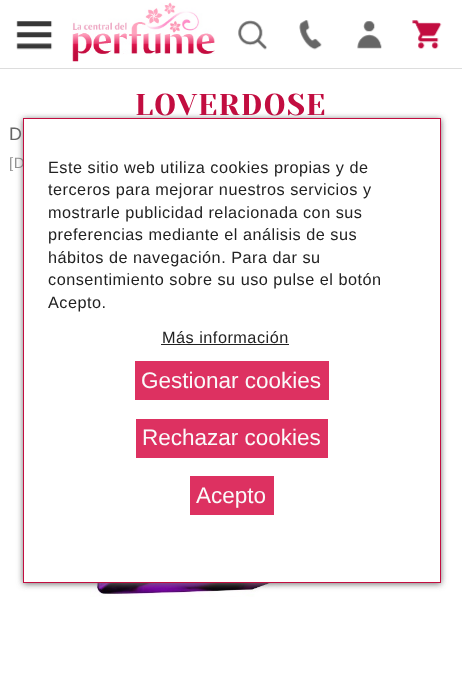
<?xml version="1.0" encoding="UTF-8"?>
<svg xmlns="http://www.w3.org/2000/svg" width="462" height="700">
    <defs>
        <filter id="blur1" x="-50%" y="-200%" width="200%" height="500%"><feGaussianBlur stdDeviation="3"/></filter>
    </defs>
    <rect width="100%" height="100%" fill="#FFFFFF"/>
    <rect x="0" y="68" width="462" height="1" fill="#DDDDDD"/>
    <image x="16" y="21" width="37" height="29" href="img_01.png"/>
    <image x="71" y="2" width="144" height="60" href="img_02.png"/>
    <image x="238" y="20" width="29" height="30" href="img_03.png"/>
    <image x="299" y="20" width="23" height="30" href="img_04.png"/>
    <image x="357" y="21" width="25" height="28" href="img_05.png"/>
    <image x="412" y="20" width="30" height="29" href="img_06.png"/>
    <text x="135" y="115" font-family="Yeseva One" font-size="30" letter-spacing="1.25" fill="#C20D40">LOVERDOSE</text>
    <text x="9" y="140" font-family="Liberation Sans" font-size="18" letter-spacing="0.5" fill="#666666">D</text>
    <text x="9" y="168" font-family="Liberation Sans" font-size="15" letter-spacing="0.5" fill="#939393">[D</text>
    <image x="90" y="583" width="306" height="14" href="img_07.png"/>
    <rect x="23" y="119" width="418" height="465" fill="#707070" filter="url(#blur1)"/>
    <rect x="23.5" y="118.5" width="417" height="464" fill="#FFFFFF" stroke="#C20D40"/>
    <text font-family="Liberation Sans" font-size="16.25" letter-spacing="0.5" fill="#222222">
        <tspan x="48" y="173">Este sitio web utiliza cookies propias y de</tspan>
        <tspan x="48" y="195">terceros para mejorar nuestros servicios y</tspan>
        <tspan x="48" y="218">mostrarle publicidad relacionada con sus</tspan>
        <tspan x="48" y="240">preferencias mediante el análisis de sus</tspan>
        <tspan x="48" y="263">hábitos de navegación. Para dar su</tspan>
        <tspan x="48" y="285">consentimiento sobre su uso pulse el botón</tspan>
        <tspan x="48" y="308">Acepto.</tspan>
    </text>
    <text x="162" y="343" font-family="Liberation Sans" font-size="16.25" letter-spacing="0.5" fill="#222222">Más información</text>
    <rect x="161" y="344" width="128" height="1" fill="#222222"/>
    <rect x="135" y="361" width="194" height="39" fill="#DD3161"/>
    <text x="141" y="388" font-family="Liberation Sans" font-size="22.5" fill="#FAFAFA">Gestionar cookies</text>
    <rect x="136" y="419" width="192" height="39" fill="#DD3161"/>
    <text x="142" y="445" font-family="Liberation Sans" font-size="22.5" fill="#FAFAFA">Rechazar cookies</text>
    <rect x="190" y="476" width="84" height="39" fill="#DD3161"/>
    <text x="196" y="503" font-family="Liberation Sans" font-size="22.5" fill="#FAFAFA">Acepto</text>
</svg>
